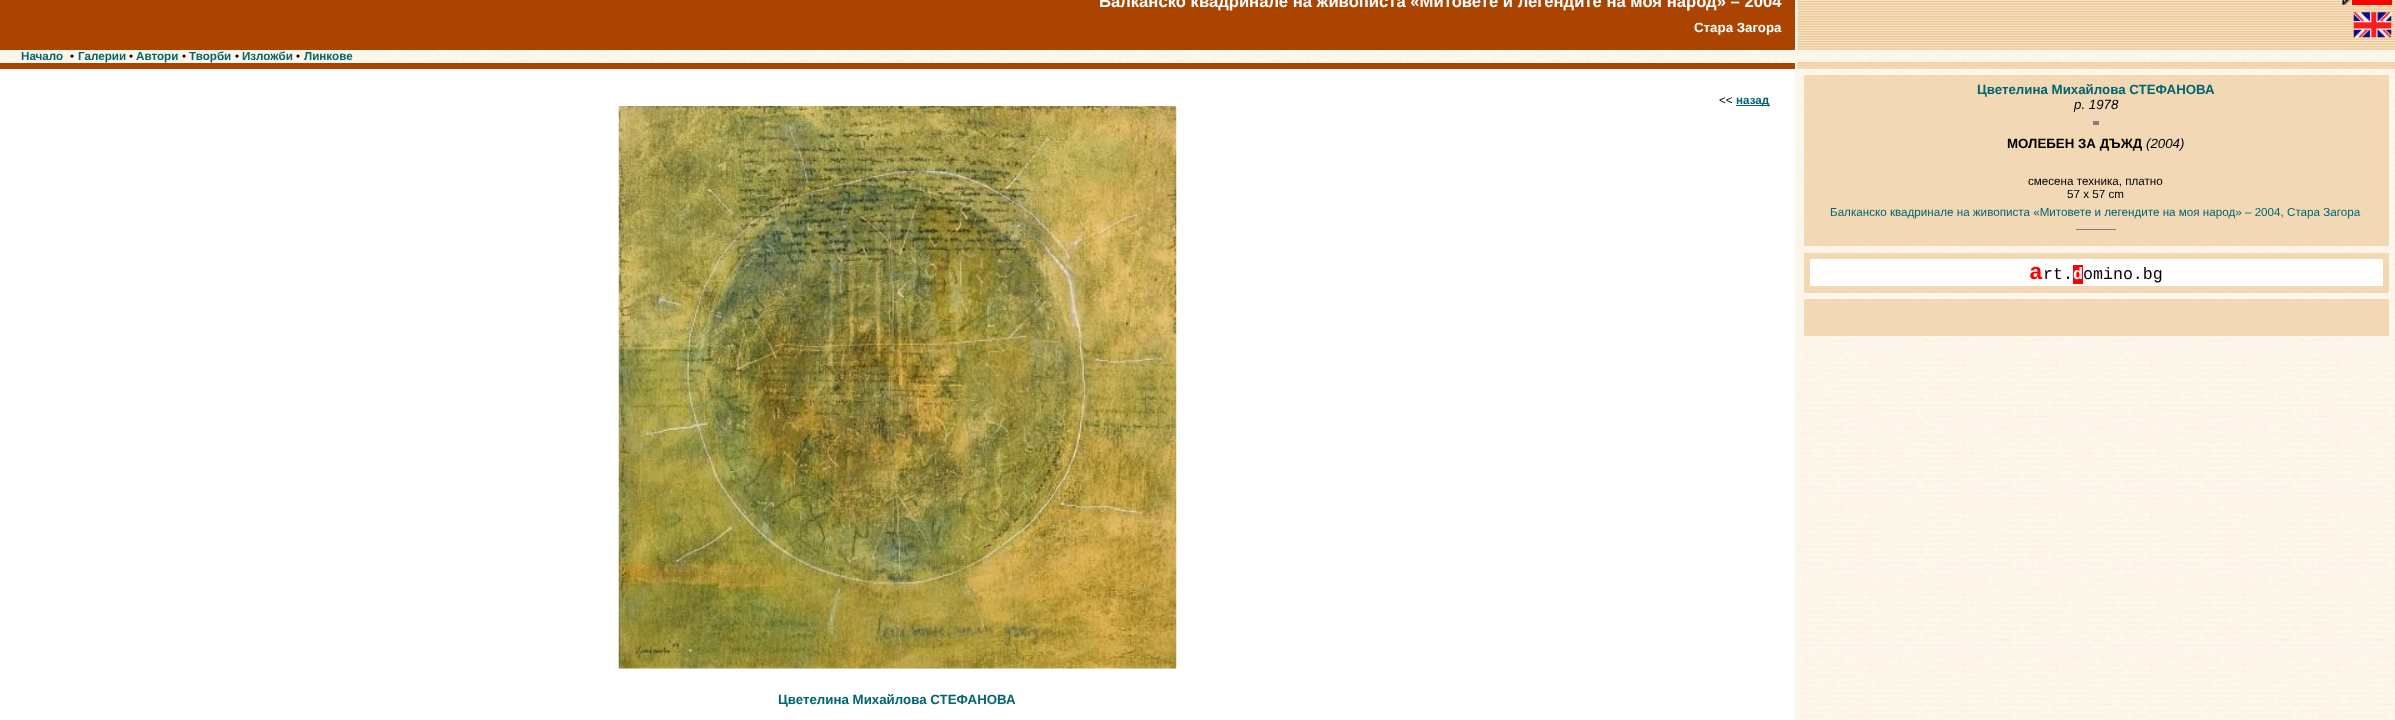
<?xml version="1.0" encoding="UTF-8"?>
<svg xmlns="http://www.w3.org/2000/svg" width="2395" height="720">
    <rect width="100%" height="100%" fill="#FFFFFF"/>
    <image x="0" y="0" width="2395" height="720" href="img_01.png"/>
    <rect x="0" y="0" width="1795" height="50" fill="#AA4400"/>
    <text x="1099" y="7" font-family="Liberation Sans" font-size="16.65" font-weight="700" fill="#FFFFFF">Балканско квадринале на живописта «Митовете и легендите на моя народ» – 2004</text>
    <text x="1694" y="32" font-family="Liberation Sans" font-size="13.3" font-weight="700" fill="#FFFFFF">Стара Загора</text>
    <rect x="1798" y="0" width="597" height="50" fill="#F7E6CE"/>
    <image x="1797" y="0" width="598" height="50" href="img_02.png"/>
    <image x="2342" y="0" width="9" height="5" href="img_03.png"/>
    <rect x="2352" y="0" width="40" height="5" fill="#FE0202"/>
    <image x="2353" y="12" width="39" height="26" href="img_04.png"/>
    <text x="21" y="60" font-family="Liberation Sans" font-size="11.65" font-weight="700" fill="#006571">Начало</text>
    <text x="70" y="60" font-family="Liberation Sans" font-size="11.65" fill="#000000">•</text>
    <text x="78" y="60" font-family="Liberation Sans" font-size="11.65" font-weight="700" fill="#006571">Галерии</text>
    <text x="129" y="60" font-family="Liberation Sans" font-size="11.65" fill="#000000">•</text>
    <text x="136" y="60" font-family="Liberation Sans" font-size="11.65" font-weight="700" fill="#006571">Автори</text>
    <text x="182" y="60" font-family="Liberation Sans" font-size="11.65" fill="#000000">•</text>
    <text x="189" y="60" font-family="Liberation Sans" font-size="11.65" font-weight="700" fill="#006571">Творби</text>
    <text x="235" y="60" font-family="Liberation Sans" font-size="11.65" fill="#000000">•</text>
    <text x="242" y="60" font-family="Liberation Sans" font-size="11.65" font-weight="700" fill="#006571">Изложби</text>
    <text x="296" y="60" font-family="Liberation Sans" font-size="11.65" fill="#000000">•</text>
    <text x="304" y="60" font-family="Liberation Sans" font-size="11.65" font-weight="700" fill="#006571">Линкове</text>
    <rect x="0" y="63" width="1795" height="6" fill="#AA4400"/>
    <rect x="1798" y="63" width="597" height="6" fill="#F7E6CE"/>
    <image x="1797" y="62" width="598" height="7" href="img_05.png"/>
    <rect x="0" y="69" width="1795" height="651" fill="#FFFFFF"/>
    <text x="1719" y="104" font-family="Liberation Sans" font-size="11.65" fill="#000000">&lt;&lt;</text>
    <rect x="1736" y="105" width="34" height="1" fill="#006571"/>
    <text x="1736" y="104" font-family="Liberation Sans" font-size="11.65" font-weight="700" fill="#006571">назад</text>
    <image x="618" y="106" width="559" height="563" href="img_06.png"/>
    <text x="778" y="704" font-family="Liberation Sans" font-size="13.3" font-weight="700" fill="#006571">Цветелина Михайлова СТЕФАНОВА</text>
    <rect x="1804" y="75" width="585" height="171" fill="#F2D8B5"/>
    <text x="1977" y="94" font-family="Liberation Sans" font-size="13.3" font-weight="700" fill="#006571">Цветелина Михайлова СТЕФАНОВА</text>
    <text x="2074" y="109" font-family="Liberation Sans" font-size="13.3" font-style="italic" fill="#000000">р. 1978</text>
    <rect x="2093" y="121" width="6" height="4" fill="#808080"/>
    <text x="2007" y="148" font-family="Liberation Sans" font-size="13.3" font-weight="700" fill="#000000">МОЛЕБЕН ЗА ДЪЖД</text>
    <text x="2146" y="148" font-family="Liberation Sans" font-size="13.3" font-style="italic" fill="#000000">(2004)</text>
    <text x="2028" y="185" font-family="Liberation Sans" font-size="11.65" fill="#000000">смесена техника, платно</text>
    <text x="2067" y="198" font-family="Liberation Sans" font-size="11.65" fill="#000000">57 x 57 cm</text>
    <text x="1830" y="216" font-family="Liberation Sans" font-size="11.65" fill="#006571">Балканско квадринале на живописта «Митовете и легендите на моя народ» – 2004, Стара Загора</text>
    <rect x="2076" y="229" width="40" height="1" fill="#808080"/>
    <rect x="1804" y="253" width="585" height="40" fill="#F2D8B5"/>
    <rect x="1810" y="259" width="573" height="27" fill="#FFFFFF"/>
    <text x="2029" y="279" font-family="Liberation Mono" font-size="23" font-weight="700" fill="#FF0000">a</text>
    <text x="2043" y="279" font-family="Liberation Mono" font-size="16.65" fill="#000000">rt. omino.bg</text>
    <rect x="2073" y="265" width="10" height="19" fill="#FF0000"/>
    <text x="2073" y="279" font-family="Liberation Mono" font-size="16.65" font-weight="700" fill="#FFFFFF">d</text>
    <rect x="1804" y="299" width="585" height="37" fill="#F2D8B5"/>
</svg>
